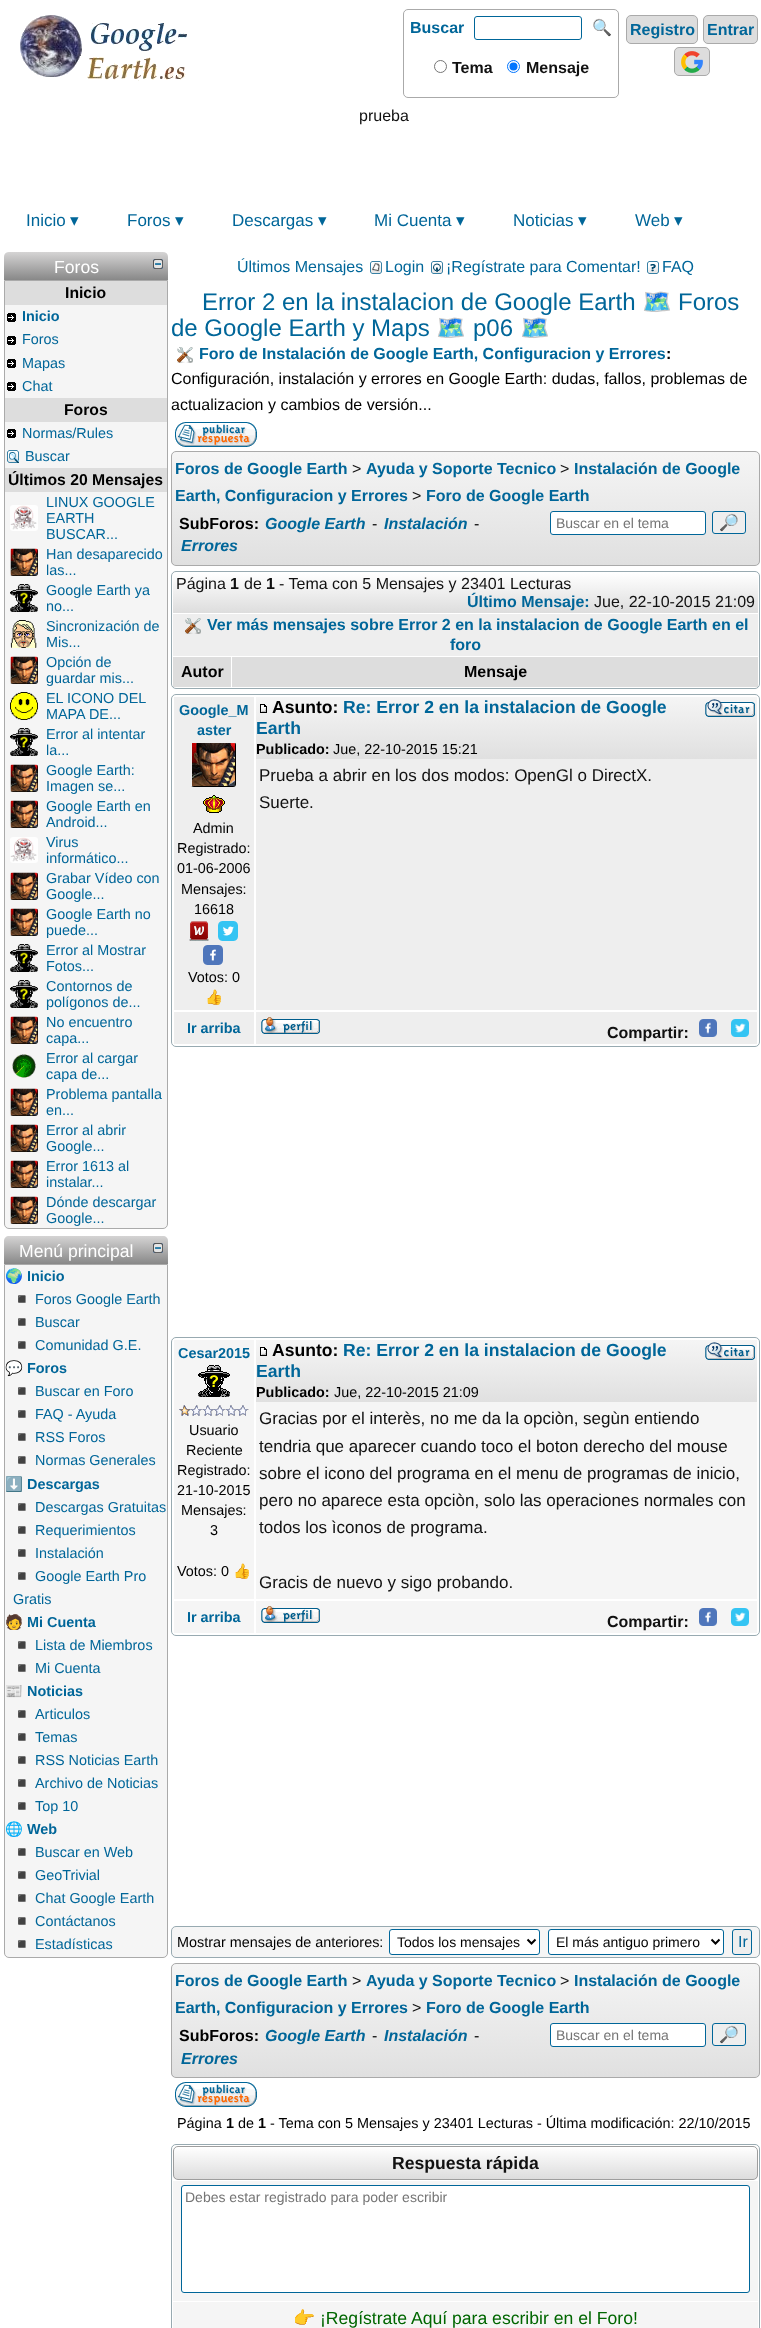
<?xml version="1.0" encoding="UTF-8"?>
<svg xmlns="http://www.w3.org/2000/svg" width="761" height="2328">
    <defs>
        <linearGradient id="g1" gradientUnits="userSpaceOnUse" x1="86" y1="252" x2="86" y2="280"><stop offset="0" stop-color="#D5D4D4"/><stop offset="1" stop-color="#888888"/></linearGradient>
        <linearGradient id="g2" gradientUnits="userSpaceOnUse" x1="86" y1="1236" x2="86" y2="1264"><stop offset="0" stop-color="#D5D4D4"/><stop offset="1" stop-color="#888888"/></linearGradient>
        <clipPath id="clip1"><rect x="171" y="451" width="589" height="115" rx="5"/></clipPath>
        <linearGradient id="g3" gradientUnits="userSpaceOnUse" x1="466" y1="452" x2="466" y2="565"><stop offset="0" stop-color="#F5F5F5"/><stop offset="1" stop-color="#E0E0E0"/></linearGradient>
        <linearGradient id="g4" gradientUnits="userSpaceOnUse" x1="466" y1="573" x2="466" y2="613"><stop offset="0" stop-color="#FFFFFF"/><stop offset="1" stop-color="#DDDDDD"/></linearGradient>
        <linearGradient id="g5" gradientUnits="userSpaceOnUse" x1="507" y1="697" x2="507" y2="759"><stop offset="0" stop-color="#F5F5F5"/><stop offset="1" stop-color="#E0E0E0"/></linearGradient>
        <linearGradient id="g6" gradientUnits="userSpaceOnUse" x1="507" y1="1340" x2="507" y2="1402"><stop offset="0" stop-color="#F5F5F5"/><stop offset="1" stop-color="#E0E0E0"/></linearGradient>
        <clipPath id="clip2"><rect x="171" y="1963" width="589" height="115" rx="5"/></clipPath>
        <linearGradient id="g7" gradientUnits="userSpaceOnUse" x1="466" y1="1964" x2="466" y2="2077"><stop offset="0" stop-color="#F5F5F5"/><stop offset="1" stop-color="#E0E0E0"/></linearGradient>
        <clipPath id="clip3"><rect x="173" y="2146" width="585" height="34" rx="5"/></clipPath>
        <linearGradient id="g8" gradientUnits="userSpaceOnUse" x1="466" y1="2147" x2="466" y2="2179"><stop offset="0" stop-color="#FFFFFF"/><stop offset="1" stop-color="#DDDDDD"/></linearGradient>
    </defs>
    <rect width="100%" height="100%" fill="#FFFFFF"/>
    <image x="20" y="15" width="167" height="66" href="img_01.png"/>
    <rect x="403.5" y="9.5" width="215" height="88" rx="4.5" fill="none" stroke="#AAAAAA"/>
    <text x="410" y="33" font-family="Liberation Sans" font-size="16" font-weight="700" fill="#006699">Buscar</text>
    <rect x="474.5" y="16.5" width="107" height="23" rx="2.5" fill="none" stroke="#006699"/>
    <text x="592" y="33" font-family="Noto Color Emoji" font-size="16" fill="#006699">🔍</text>
    <circle cx="440.5" cy="66.5" r="6" fill="none" stroke="#767676"/>
    <text x="452" y="73" font-family="Liberation Sans" font-size="16" font-weight="700" fill="#111111">Tema</text>
    <circle cx="513.5" cy="66.5" r="6" fill="none" stroke="#0075FF"/>
    <circle cx="513.5" cy="66.5" r="4" fill="#0075FF"/>
    <text x="526" y="73" font-family="Liberation Sans" font-size="16" font-weight="700" fill="#111111">Mensaje</text>
    <rect x="626.5" y="15.5" width="71" height="28" rx="4.5" fill="#DDDDDD" stroke="#AAAAAA"/>
    <text x="630" y="35" font-family="Liberation Sans" font-size="16" font-weight="700" fill="#006699">Registro</text>
    <rect x="703.5" y="15.5" width="54" height="28" rx="4.5" fill="#DDDDDD" stroke="#AAAAAA"/>
    <text x="707" y="35" font-family="Liberation Sans" font-size="16" font-weight="700" fill="#006699">Entrar</text>
    <rect x="674.5" y="47.5" width="35" height="28" rx="4.5" fill="#DDDDDD" stroke="#AAAAAA"/>
    <image x="681" y="51" width="22" height="22" href="img_02.png"/>
    <text x="359" y="121" font-family="Liberation Sans" font-size="16" fill="#111111">prueba</text>
    <text x="26" y="226" font-family="Liberation Sans" font-size="17" fill="#006699">Inicio</text>
    <text x="70" y="226" font-family="DejaVu Sans" font-size="17" fill="#006699">▾</text>
    <text x="127" y="226" font-family="Liberation Sans" font-size="17" fill="#006699">Foros</text>
    <text x="175" y="226" font-family="DejaVu Sans" font-size="17" fill="#006699">▾</text>
    <text x="232" y="226" font-family="Liberation Sans" font-size="17" fill="#006699">Descargas</text>
    <text x="318" y="226" font-family="DejaVu Sans" font-size="17" fill="#006699">▾</text>
    <text x="374" y="226" font-family="Liberation Sans" font-size="17" fill="#006699">Mi Cuenta</text>
    <text x="456" y="226" font-family="DejaVu Sans" font-size="17" fill="#006699">▾</text>
    <text x="513" y="226" font-family="Liberation Sans" font-size="17" fill="#006699">Noticias</text>
    <text x="578" y="226" font-family="DejaVu Sans" font-size="17" fill="#006699">▾</text>
    <text x="635" y="226" font-family="Liberation Sans" font-size="17" fill="#006699">Web</text>
    <text x="674" y="226" font-family="DejaVu Sans" font-size="17" fill="#006699">▾</text>
    <path d="M 9 252 H 163 C 166 252 168 254 168 257 V 280 H 4 V 257 C 4 254 6 252 9 252 Z" fill="url(#g1)"/>
    <text x="54" y="273" font-family="Liberation Sans" font-size="17.6" fill="#FFFFFF">Foros</text>
    <image x="153" y="259" width="10" height="10" href="img_03.png"/>
    <path d="M 4.5 280.5 H 167.5 V 1224 C 167.5 1226.5 165.5 1228.5 163 1228.5 H 9 C 6.5 1228.5 4.5 1226.5 4.5 1224 Z" fill="#F5F5F5" stroke="#AAAAAA"/>
    <rect x="5" y="281" width="162" height="24" fill="#DDDDDD"/>
    <text x="65" y="298" font-family="Liberation Sans" font-size="15.75" font-weight="700" fill="#000000">Inicio</text>
    <image x="7" y="313" width="9" height="9" href="img_04.png"/>
    <text x="22" y="321" font-family="Liberation Sans" font-size="14.4" font-weight="700" fill="#006699">Inicio</text>
    <image x="7" y="336" width="9" height="9" href="img_04.png"/>
    <text x="22" y="344" font-family="Liberation Sans" font-size="14.4" fill="#006699">Foros</text>
    <image x="7" y="359" width="9" height="9" href="img_04.png"/>
    <text x="22" y="368" font-family="Liberation Sans" font-size="14.4" fill="#006699">Mapas</text>
    <image x="7" y="382" width="9" height="9" href="img_04.png"/>
    <text x="22" y="391" font-family="Liberation Sans" font-size="14.4" fill="#006699">Chat</text>
    <rect x="5" y="398" width="162" height="24" fill="#DDDDDD"/>
    <text x="64" y="415" font-family="Liberation Sans" font-size="15.75" font-weight="700" fill="#000000">Foros</text>
    <image x="7" y="429" width="9" height="9" href="img_04.png"/>
    <text x="22" y="438" font-family="Liberation Sans" font-size="14.4" fill="#006699">Normas/Rules</text>
    <image x="7" y="450" width="12" height="13" href="img_05.png"/>
    <text x="25" y="461" font-family="Liberation Sans" font-size="14.4" fill="#006699">Buscar</text>
    <rect x="5" y="468" width="162" height="24" fill="#DDDDDD"/>
    <text x="8" y="485" font-family="Liberation Sans" font-size="15.75" font-weight="700" fill="#000000">Últimos 20 Mensajes</text>
    <image x="10" y="505" width="28" height="26" href="img_06.png"/>
    <text font-family="Liberation Sans" font-size="14.4" fill="#006699">
        <tspan x="46" y="507">LINUX GOOGLE</tspan>
        <tspan x="46" y="523">EARTH</tspan>
        <tspan x="46" y="539">BUSCAR...</tspan>
    </text>
    <image x="10" y="548" width="28" height="28" href="img_07.png"/>
    <text font-family="Liberation Sans" font-size="14.4" fill="#006699">
        <tspan x="46" y="559">Han desaparecido</tspan>
        <tspan x="46" y="575">las...</tspan>
    </text>
    <image x="10" y="584" width="28" height="28" href="img_08.png"/>
    <text font-family="Liberation Sans" font-size="14.4" fill="#006699">
        <tspan x="46" y="595">Google Earth ya</tspan>
        <tspan x="46" y="611">no...</tspan>
    </text>
    <image x="10" y="620" width="27" height="28" href="img_09.png"/>
    <text font-family="Liberation Sans" font-size="14.4" fill="#006699">
        <tspan x="46" y="631">Sincronización de</tspan>
        <tspan x="46" y="647">Mis...</tspan>
    </text>
    <image x="10" y="656" width="28" height="28" href="img_07.png"/>
    <text font-family="Liberation Sans" font-size="14.4" fill="#006699">
        <tspan x="46" y="667">Opción de</tspan>
        <tspan x="46" y="683">guardar mis...</tspan>
    </text>
    <image x="10" y="692" width="28" height="28" href="img_10.png"/>
    <text font-family="Liberation Sans" font-size="14.4" fill="#006699">
        <tspan x="46" y="703">EL ICONO DEL</tspan>
        <tspan x="46" y="719">MAPA DE...</tspan>
    </text>
    <image x="10" y="728" width="28" height="28" href="img_08.png"/>
    <text font-family="Liberation Sans" font-size="14.4" fill="#006699">
        <tspan x="46" y="739">Error al intentar</tspan>
        <tspan x="46" y="755">la...</tspan>
    </text>
    <image x="10" y="764" width="28" height="28" href="img_11.png"/>
    <text font-family="Liberation Sans" font-size="14.4" fill="#006699">
        <tspan x="46" y="775">Google Earth:</tspan>
        <tspan x="46" y="791">Imagen se...</tspan>
    </text>
    <image x="10" y="800" width="28" height="28" href="img_07.png"/>
    <text font-family="Liberation Sans" font-size="14.4" fill="#006699">
        <tspan x="46" y="811">Google Earth en</tspan>
        <tspan x="46" y="827">Android...</tspan>
    </text>
    <image x="10" y="837" width="28" height="26" href="img_12.png"/>
    <text font-family="Liberation Sans" font-size="14.4" fill="#006699">
        <tspan x="46" y="847">Virus</tspan>
        <tspan x="46" y="863">informático...</tspan>
    </text>
    <image x="10" y="872" width="28" height="28" href="img_07.png"/>
    <text font-family="Liberation Sans" font-size="14.4" fill="#006699">
        <tspan x="46" y="883">Grabar Vídeo con</tspan>
        <tspan x="46" y="899">Google...</tspan>
    </text>
    <image x="10" y="908" width="28" height="28" href="img_07.png"/>
    <text font-family="Liberation Sans" font-size="14.4" fill="#006699">
        <tspan x="46" y="919">Google Earth no</tspan>
        <tspan x="46" y="935">puede...</tspan>
    </text>
    <image x="10" y="944" width="28" height="28" href="img_08.png"/>
    <text font-family="Liberation Sans" font-size="14.4" fill="#006699">
        <tspan x="46" y="955">Error al Mostrar</tspan>
        <tspan x="46" y="971">Fotos...</tspan>
    </text>
    <image x="10" y="980" width="28" height="28" href="img_08.png"/>
    <text font-family="Liberation Sans" font-size="14.4" fill="#006699">
        <tspan x="46" y="991">Contornos de</tspan>
        <tspan x="46" y="1007">polígonos de...</tspan>
    </text>
    <image x="10" y="1016" width="28" height="28" href="img_13.png"/>
    <text font-family="Liberation Sans" font-size="14.4" fill="#006699">
        <tspan x="46" y="1027">No encuentro</tspan>
        <tspan x="46" y="1043">capa...</tspan>
    </text>
    <image x="12" y="1054" width="24" height="24" href="img_14.png"/>
    <text font-family="Liberation Sans" font-size="14.4" fill="#006699">
        <tspan x="46" y="1063">Error al cargar</tspan>
        <tspan x="46" y="1079">capa de...</tspan>
    </text>
    <image x="10" y="1088" width="28" height="28" href="img_07.png"/>
    <text font-family="Liberation Sans" font-size="14.4" fill="#006699">
        <tspan x="46" y="1099">Problema pantalla</tspan>
        <tspan x="46" y="1115">en...</tspan>
    </text>
    <image x="10" y="1124" width="28" height="28" href="img_07.png"/>
    <text font-family="Liberation Sans" font-size="14.4" fill="#006699">
        <tspan x="46" y="1135">Error al abrir</tspan>
        <tspan x="46" y="1151">Google...</tspan>
    </text>
    <image x="10" y="1160" width="28" height="28" href="img_07.png"/>
    <text font-family="Liberation Sans" font-size="14.4" fill="#006699">
        <tspan x="46" y="1171">Error 1613 al</tspan>
        <tspan x="46" y="1187">instalar...</tspan>
    </text>
    <image x="10" y="1196" width="28" height="28" href="img_07.png"/>
    <text font-family="Liberation Sans" font-size="14.4" fill="#006699">
        <tspan x="46" y="1207">Dónde descargar</tspan>
        <tspan x="46" y="1223">Google...</tspan>
    </text>
    <path d="M 9 1236 H 163 C 166 1236 168 1238 168 1241 V 1264 H 4 V 1241 C 4 1238 6 1236 9 1236 Z" fill="url(#g2)"/>
    <text x="19" y="1257" font-family="Liberation Sans" font-size="17.6" fill="#FFFFFF">Menú principal</text>
    <image x="153" y="1243" width="10" height="10" href="img_03.png"/>
    <path d="M 4.5 1264.5 H 167.5 V 1953 C 167.5 1955.5 165.5 1957.5 163 1957.5 H 9 C 6.5 1957.5 4.5 1955.5 4.5 1953 Z" fill="#F5F5F5" stroke="#AAAAAA"/>
    <text x="5" y="1281" font-family="Noto Color Emoji" font-size="14.4" fill="#111111">🌍</text>
    <text x="27" y="1281" font-family="Liberation Sans" font-size="14.4" font-weight="700" fill="#006699">Inicio</text>
    <text x="13" y="1304" font-family="Noto Color Emoji" font-size="14.4" fill="#111111">◾</text>
    <text x="35" y="1304" font-family="Liberation Sans" font-size="14.4" fill="#006699">Foros Google Earth</text>
    <text x="13" y="1327" font-family="Noto Color Emoji" font-size="14.4" fill="#111111">◾</text>
    <text x="35" y="1327" font-family="Liberation Sans" font-size="14.4" fill="#006699">Buscar</text>
    <text x="13" y="1350" font-family="Noto Color Emoji" font-size="14.4" fill="#111111">◾</text>
    <text x="35" y="1350" font-family="Liberation Sans" font-size="14.4" fill="#006699">Comunidad G.E.</text>
    <text x="5" y="1373" font-family="Noto Color Emoji" font-size="14.4" fill="#111111">💬</text>
    <text x="27" y="1373" font-family="Liberation Sans" font-size="14.4" font-weight="700" fill="#006699">Foros</text>
    <text x="13" y="1396" font-family="Noto Color Emoji" font-size="14.4" fill="#111111">◾</text>
    <text x="35" y="1396" font-family="Liberation Sans" font-size="14.4" fill="#006699">Buscar en Foro</text>
    <text x="13" y="1419" font-family="Noto Color Emoji" font-size="14.4" fill="#111111">◾</text>
    <text x="35" y="1419" font-family="Liberation Sans" font-size="14.4" fill="#006699">FAQ - Ayuda</text>
    <text x="13" y="1442" font-family="Noto Color Emoji" font-size="14.4" fill="#111111">◾</text>
    <text x="35" y="1442" font-family="Liberation Sans" font-size="14.4" fill="#006699">RSS Foros</text>
    <text x="13" y="1465" font-family="Noto Color Emoji" font-size="14.4" fill="#111111">◾</text>
    <text x="35" y="1465" font-family="Liberation Sans" font-size="14.4" fill="#006699">Normas Generales</text>
    <text x="5" y="1489" font-family="Noto Color Emoji" font-size="14.4" fill="#111111">⬇️</text>
    <text x="27" y="1489" font-family="Liberation Sans" font-size="14.4" font-weight="700" fill="#006699">Descargas</text>
    <text x="13" y="1512" font-family="Noto Color Emoji" font-size="14.4" fill="#111111">◾</text>
    <text x="35" y="1512" font-family="Liberation Sans" font-size="14.4" fill="#006699">Descargas Gratuitas</text>
    <text x="13" y="1535" font-family="Noto Color Emoji" font-size="14.4" fill="#111111">◾</text>
    <text x="35" y="1535" font-family="Liberation Sans" font-size="14.4" fill="#006699">Requerimientos</text>
    <text x="13" y="1558" font-family="Noto Color Emoji" font-size="14.4" fill="#111111">◾</text>
    <text x="35" y="1558" font-family="Liberation Sans" font-size="14.4" fill="#006699">Instalación</text>
    <text x="13" y="1581" font-family="Noto Color Emoji" font-size="14.4" fill="#111111">◾</text>
    <text x="35" y="1581" font-family="Liberation Sans" font-size="14.4" fill="#006699">Google Earth Pro</text>
    <text x="13" y="1604" font-family="Liberation Sans" font-size="14.4" fill="#006699">Gratis</text>
    <text x="5" y="1627" font-family="Noto Color Emoji" font-size="14.4" fill="#111111">🧑</text>
    <text x="27" y="1627" font-family="Liberation Sans" font-size="14.4" font-weight="700" fill="#006699">Mi Cuenta</text>
    <text x="13" y="1650" font-family="Noto Color Emoji" font-size="14.4" fill="#111111">◾</text>
    <text x="35" y="1650" font-family="Liberation Sans" font-size="14.4" fill="#006699">Lista de Miembros</text>
    <text x="13" y="1673" font-family="Noto Color Emoji" font-size="14.4" fill="#111111">◾</text>
    <text x="35" y="1673" font-family="Liberation Sans" font-size="14.4" fill="#006699">Mi Cuenta</text>
    <text x="5" y="1696" font-family="Noto Color Emoji" font-size="14.4" fill="#111111">📰</text>
    <text x="27" y="1696" font-family="Liberation Sans" font-size="14.4" font-weight="700" fill="#006699">Noticias</text>
    <text x="13" y="1719" font-family="Noto Color Emoji" font-size="14.4" fill="#111111">◾</text>
    <text x="35" y="1719" font-family="Liberation Sans" font-size="14.4" fill="#006699">Articulos</text>
    <text x="13" y="1742" font-family="Noto Color Emoji" font-size="14.4" fill="#111111">◾</text>
    <text x="35" y="1742" font-family="Liberation Sans" font-size="14.4" fill="#006699">Temas</text>
    <text x="13" y="1765" font-family="Noto Color Emoji" font-size="14.4" fill="#111111">◾</text>
    <text x="35" y="1765" font-family="Liberation Sans" font-size="14.4" fill="#006699">RSS Noticias Earth</text>
    <text x="13" y="1788" font-family="Noto Color Emoji" font-size="14.4" fill="#111111">◾</text>
    <text x="35" y="1788" font-family="Liberation Sans" font-size="14.4" fill="#006699">Archivo de Noticias</text>
    <text x="13" y="1811" font-family="Noto Color Emoji" font-size="14.4" fill="#111111">◾</text>
    <text x="35" y="1811" font-family="Liberation Sans" font-size="14.4" fill="#006699">Top 10</text>
    <text x="5" y="1834" font-family="Noto Color Emoji" font-size="14.4" fill="#111111">🌐</text>
    <text x="27" y="1834" font-family="Liberation Sans" font-size="14.4" font-weight="700" fill="#006699">Web</text>
    <text x="13" y="1857" font-family="Noto Color Emoji" font-size="14.4" fill="#111111">◾</text>
    <text x="35" y="1857" font-family="Liberation Sans" font-size="14.4" fill="#006699">Buscar en Web</text>
    <text x="13" y="1880" font-family="Noto Color Emoji" font-size="14.4" fill="#111111">◾</text>
    <text x="35" y="1880" font-family="Liberation Sans" font-size="14.4" fill="#006699">GeoTrivial</text>
    <text x="13" y="1903" font-family="Noto Color Emoji" font-size="14.4" fill="#111111">◾</text>
    <text x="35" y="1903" font-family="Liberation Sans" font-size="14.4" fill="#006699">Chat Google Earth</text>
    <text x="13" y="1926" font-family="Noto Color Emoji" font-size="14.4" fill="#111111">◾</text>
    <text x="35" y="1926" font-family="Liberation Sans" font-size="14.4" fill="#006699">Contáctanos</text>
    <text x="13" y="1949" font-family="Noto Color Emoji" font-size="14.4" fill="#111111">◾</text>
    <text x="35" y="1949" font-family="Liberation Sans" font-size="14.4" fill="#006699">Estadísticas</text>
    <text x="237" y="272" font-family="Liberation Sans" font-size="16" fill="#006699">Últimos Mensajes</text>
    <image x="370" y="261" width="12" height="13" href="img_15.png"/>
    <text x="385" y="272" font-family="Liberation Sans" font-size="16" fill="#006699">Login</text>
    <image x="431" y="261" width="12" height="13" href="img_16.png"/>
    <text x="446" y="272" font-family="Liberation Sans" font-size="16" fill="#006699">¡Regístrate para Comentar!</text>
    <image x="647" y="261" width="12" height="13" href="img_17.png"/>
    <text x="662" y="272" font-family="Liberation Sans" font-size="16" fill="#006699">FAQ</text>
    <text x="202" y="310" font-family="Liberation Sans" font-size="24" fill="#006699">Error 2 en la instalacion de Google Earth</text>
    <text x="642" y="310" font-family="Noto Color Emoji" font-size="24" fill="#006699">🗺️</text>
    <text x="678" y="310" font-family="Liberation Sans" font-size="24" fill="#006699">Foros</text>
    <text x="171" y="336" font-family="Liberation Sans" font-size="24" fill="#006699">de Google Earth y Maps</text>
    <text x="436" y="336" font-family="Noto Color Emoji" font-size="24" fill="#006699">🗺️</text>
    <text x="473" y="336" font-family="Liberation Sans" font-size="24" fill="#006699">p06</text>
    <text x="520" y="336" font-family="Noto Color Emoji" font-size="24" fill="#000000">🗺️</text>
    <image x="177" y="347" width="16" height="16" href="img_18.png"/>
    <text x="199" y="359" font-family="Liberation Sans" font-size="16" font-weight="700" fill="#006699">Foro de Instalación de Google Earth, Configuracion y Errores</text>
    <text x="666" y="359" font-family="Liberation Sans" font-size="16" font-weight="700" fill="#000000">:</text>
    <text font-family="Liberation Sans" font-size="16" fill="#000000">
        <tspan x="171" y="384">Configuración, instalación y errores en Google Earth: dudas, fallos, problemas de</tspan>
        <tspan x="171" y="410">actualizacion y cambios de versión...</tspan>
    </text>
    <image x="175" y="422" width="82" height="25" href="img_19.png"/>
    <g clip-path="url(#clip1)">
        <rect x="171" y="452" width="589" height="113" fill="url(#g3)"/>
    </g>
    <rect x="171.5" y="451.5" width="588" height="114" rx="4.5" fill="none" stroke="#AAAAAA"/>
    <text x="175" y="474" font-family="Liberation Sans" font-size="16" font-weight="700" fill="#006699">Foros de Google Earth</text>
    <text x="352" y="474" font-family="Liberation Sans" font-size="16" fill="#111111">&gt;</text>
    <text x="366" y="474" font-family="Liberation Sans" font-size="16" font-weight="700" fill="#006699">Ayuda y Soporte Tecnico</text>
    <text x="560" y="474" font-family="Liberation Sans" font-size="16" fill="#111111">&gt;</text>
    <text x="574" y="474" font-family="Liberation Sans" font-size="16" font-weight="700" fill="#006699">Instalación de Google</text>
    <text x="175" y="501" font-family="Liberation Sans" font-size="16" font-weight="700" fill="#006699">Earth, Configuracion y Errores</text>
    <text x="412" y="501" font-family="Liberation Sans" font-size="16" fill="#111111">&gt;</text>
    <text x="426" y="501" font-family="Liberation Sans" font-size="16" font-weight="700" fill="#006699">Foro de Google Earth</text>
    <text x="179" y="529" font-family="Liberation Sans" font-size="16" font-weight="700" fill="#000000">SubForos:</text>
    <text x="265" y="529" font-family="Liberation Sans" font-size="16" font-weight="700" font-style="italic" fill="#006699">Google Earth</text>
    <text x="372" y="529" font-family="Liberation Sans" font-size="16" fill="#000000">-</text>
    <text x="384" y="529" font-family="Liberation Sans" font-size="16" font-weight="700" font-style="italic" fill="#006699">Instalación</text>
    <text x="474" y="529" font-family="Liberation Sans" font-size="16" fill="#000000">-</text>
    <text x="181" y="551" font-family="Liberation Sans" font-size="16" font-weight="700" font-style="italic" fill="#006699">Errores</text>
    <rect x="550.5" y="511.5" width="155" height="23" rx="2.5" fill="#FFFFFF" stroke="#006699"/>
    <text x="556" y="528" font-family="Liberation Sans" font-size="14" fill="#757575">Buscar en el tema</text>
    <rect x="712.5" y="511.5" width="33" height="22" rx="2.5" fill="#EEEEEE" stroke="#006699"/>
    <text x="719" y="528" font-family="Noto Color Emoji" font-size="16" fill="#006699">🔎</text>
    <rect x="171.5" y="571.5" width="588" height="117" rx="4.5" fill="none" stroke="#98AAB1"/>
    <rect x="173" y="573" width="585" height="40" fill="url(#g4)"/>
    <text x="176" y="589" font-family="Liberation Sans" font-size="16" fill="#111111">Página</text>
    <text x="230" y="589" font-family="Liberation Sans" font-size="16" font-weight="700" fill="#111111">1</text>
    <text x="244" y="589" font-family="Liberation Sans" font-size="16" fill="#111111">de</text>
    <text x="266" y="589" font-family="Liberation Sans" font-size="16" font-weight="700" fill="#111111">1</text>
    <text x="279" y="589" font-family="Liberation Sans" font-size="16" fill="#111111">- Tema con 5 Mensajes y 23401 Lecturas</text>
    <text x="467" y="607" font-family="Liberation Sans" font-size="16" font-weight="700" fill="#006699">Último Mensaje:</text>
    <text x="594" y="607" font-family="Liberation Sans" font-size="16" fill="#111111">Jue, 22-10-2015 21:09</text>
    <rect x="173" y="614" width="585" height="42" fill="#EEEEEE"/>
    <image x="185" y="618" width="16" height="16" href="img_20.png"/>
    <text x="207" y="630" font-family="Liberation Sans" font-size="16" font-weight="700" fill="#006699">Ver más mensajes sobre Error 2 en la instalacion de Google Earth en el</text>
    <text x="450" y="650" font-family="Liberation Sans" font-size="16" font-weight="700" fill="#006699">foro</text>
    <rect x="173" y="657" width="58" height="30" fill="#DDDDDD"/>
    <text x="181" y="677" font-family="Liberation Sans" font-size="16" font-weight="700" fill="#000000">Autor</text>
    <rect x="232" y="657" width="526" height="30" fill="#DDDDDD"/>
    <text x="464" y="677" font-family="Liberation Sans" font-size="16" font-weight="700" fill="#000000">Mensaje</text>
    <rect x="171.5" y="694.5" width="588" height="352" rx="4.5" fill="none" stroke="#98AAB1"/>
    <rect x="174" y="697" width="80" height="313" fill="#EEEEEE"/>
    <text x="179" y="715" font-family="Liberation Sans" font-size="14.4" font-weight="700" fill="#006699">Google_M</text>
    <text x="197" y="735" font-family="Liberation Sans" font-size="14.4" font-weight="700" fill="#006699">aster</text>
    <image x="191" y="743" width="45" height="44" href="img_21.png"/>
    <image x="203" y="795" width="22" height="18" href="img_22.png"/>
    <text x="193" y="833" font-family="Liberation Sans" font-size="14.4" fill="#000000">Admin</text>
    <text font-family="Liberation Sans" font-size="14.4" fill="#000000">
        <tspan x="177" y="853">Registrado:</tspan>
        <tspan x="177" y="873">01-06-2006</tspan>
    </text>
    <text x="181" y="894" font-family="Liberation Sans" font-size="14.4" fill="#000000">Mensajes:</text>
    <text x="194" y="914" font-family="Liberation Sans" font-size="14.4" fill="#000000">16618</text>
    <image x="189" y="921" width="20" height="20" href="img_23.png"/>
    <image x="218" y="921" width="20" height="20" href="img_24.png"/>
    <image x="203" y="945" width="20" height="20" href="img_25.png"/>
    <text x="188" y="982" font-family="Liberation Sans" font-size="14.4" fill="#000000">Votos: 0</text>
    <text x="205" y="1002" font-family="Noto Color Emoji" font-size="14.4" fill="#000000">👍</text>
    <rect x="256" y="759" width="501" height="251" fill="#EEEEEE"/>
    <rect x="256" y="697" width="501" height="62" fill="url(#g5)"/>
    <image x="260" y="704" width="7" height="9" href="img_26.png"/>
    <text x="272" y="713" font-family="Liberation Sans" font-size="17.6" font-weight="700" fill="#000000">Asunto:</text>
    <text x="343" y="713" font-family="Liberation Sans" font-size="17.6" font-weight="700" fill="#006699">Re: Error 2 en la instalacion de Google</text>
    <text x="256" y="734" font-family="Liberation Sans" font-size="17.6" font-weight="700" fill="#006699">Earth</text>
    <text x="256" y="754" font-family="Liberation Sans" font-size="14.4" font-weight="700" fill="#000000">Publicado:</text>
    <text x="333" y="754" font-family="Liberation Sans" font-size="14.4" fill="#000000">Jue, 22-10-2015 15:21</text>
    <image x="705" y="699" width="50" height="18" href="img_27.png"/>
    <text font-family="Liberation Sans" font-size="17" fill="#111111">
        <tspan x="259" y="781">Prueba a abrir en los dos modos: OpenGl o DirectX.</tspan>
        <tspan x="259" y="808">Suerte.</tspan>
    </text>
    <rect x="174" y="1012" width="80" height="32" fill="#EEEEEE"/>
    <text x="187" y="1033" font-family="Liberation Sans" font-size="14.4" font-weight="700" fill="#006699">Ir arriba</text>
    <rect x="256" y="1012" width="501" height="32" fill="#EEEEEE"/>
    <image x="261" y="1017" width="59" height="17" href="img_28.png"/>
    <text x="607" y="1038" font-family="Liberation Sans" font-size="16" font-weight="700" fill="#111111">Compartir:</text>
    <image x="699" y="1019" width="18" height="18" href="img_29.png"/>
    <image x="731" y="1019" width="18" height="18" href="img_30.png"/>
    <rect x="171.5" y="1337.5" width="588" height="298" rx="4.5" fill="none" stroke="#98AAB1"/>
    <rect x="174" y="1340" width="80" height="259" fill="#F5F5F5"/>
    <text x="178" y="1358" font-family="Liberation Sans" font-size="14.4" font-weight="700" fill="#006699">Cesar2015</text>
    <image x="198" y="1365" width="32" height="32" href="img_31.png"/>
    <image x="179" y="1405" width="70" height="11" href="img_32.png"/>
    <text x="189" y="1435" font-family="Liberation Sans" font-size="14.4" fill="#000000">Usuario</text>
    <text x="186" y="1455" font-family="Liberation Sans" font-size="14.4" fill="#000000">Reciente</text>
    <text font-family="Liberation Sans" font-size="14.4" fill="#000000">
        <tspan x="177" y="1475">Registrado:</tspan>
        <tspan x="177" y="1495">21-10-2015</tspan>
    </text>
    <text x="181" y="1515" font-family="Liberation Sans" font-size="14.4" fill="#000000">Mensajes:</text>
    <text x="210" y="1535" font-family="Liberation Sans" font-size="14.4" fill="#000000">3</text>
    <text x="177" y="1576" font-family="Liberation Sans" font-size="14.4" fill="#000000">Votos: 0</text>
    <text x="233" y="1576" font-family="Noto Color Emoji" font-size="14.4" fill="#000000">👍</text>
    <rect x="256" y="1402" width="501" height="197" fill="#F5F5F5"/>
    <rect x="256" y="1340" width="501" height="62" fill="url(#g6)"/>
    <image x="260" y="1347" width="7" height="9" href="img_26.png"/>
    <text x="272" y="1356" font-family="Liberation Sans" font-size="17.6" font-weight="700" fill="#000000">Asunto:</text>
    <text x="343" y="1356" font-family="Liberation Sans" font-size="17.6" font-weight="700" fill="#006699">Re: Error 2 en la instalacion de Google</text>
    <text x="256" y="1377" font-family="Liberation Sans" font-size="17.6" font-weight="700" fill="#006699">Earth</text>
    <text x="256" y="1397" font-family="Liberation Sans" font-size="14.4" font-weight="700" fill="#000000">Publicado:</text>
    <text x="334" y="1397" font-family="Liberation Sans" font-size="14.4" fill="#000000">Jue, 22-10-2015 21:09</text>
    <image x="705" y="1342" width="50" height="18" href="img_27.png"/>
    <text font-family="Liberation Sans" font-size="17" fill="#111111">
        <tspan x="259" y="1424">Gracias por el interès, no me da la opciòn, segùn entiendo</tspan>
        <tspan x="259" y="1452">tendria que aparecer cuando toco el boton derecho del mouse</tspan>
        <tspan x="259" y="1479">sobre el icono del programa en el menu de programas de inicio,</tspan>
        <tspan x="259" y="1506">pero no aparece esta opciòn, solo las operaciones normales con</tspan>
        <tspan x="259" y="1533">todos los ìconos de programa.</tspan>
    </text>
    <text x="259" y="1588" font-family="Liberation Sans" font-size="17" fill="#111111">Gracis de nuevo y sigo probando.</text>
    <rect x="174" y="1601" width="80" height="32" fill="#F5F5F5"/>
    <text x="187" y="1622" font-family="Liberation Sans" font-size="14.4" font-weight="700" fill="#006699">Ir arriba</text>
    <rect x="256" y="1601" width="501" height="32" fill="#F5F5F5"/>
    <image x="261" y="1606" width="59" height="17" href="img_33.png"/>
    <text x="607" y="1627" font-family="Liberation Sans" font-size="16" font-weight="700" fill="#111111">Compartir:</text>
    <image x="699" y="1608" width="18" height="18" href="img_34.png"/>
    <image x="731" y="1608" width="18" height="18" href="img_35.png"/>
    <rect x="171.5" y="1926.5" width="588" height="31" rx="4.5" fill="#F5F5F5" stroke="#98AAB1"/>
    <text x="177" y="1947" font-family="Liberation Sans" font-size="14.4" fill="#000000">Mostrar mensajes de anteriores:</text>
    <rect x="389.5" y="1929.5" width="150" height="25" rx="2.5" fill="#FFFFFF" stroke="#006699"/>
    <path d="M 527.5 1939.5 L 531.5 1943.5 L 535.5 1939.5" fill="none" stroke="#000000" stroke-width="2"/>
    <text x="397" y="1947" font-family="Liberation Sans" font-size="14" fill="#000000">Todos los mensajes</text>
    <rect x="548.5" y="1929.5" width="175" height="25" rx="2.5" fill="#FFFFFF" stroke="#006699"/>
    <path d="M 711.5 1939.5 L 715.5 1943.5 L 719.5 1939.5" fill="none" stroke="#000000" stroke-width="2"/>
    <text x="556" y="1947" font-family="Liberation Sans" font-size="14" fill="#000000">El más antiguo primero</text>
    <rect x="732.5" y="1929.5" width="19" height="25" rx="2.5" fill="#EEEEEE" stroke="#006699"/>
    <text x="738" y="1947" font-family="Liberation Sans" font-size="16" fill="#006699">Ir</text>
    <g clip-path="url(#clip2)">
        <rect x="171" y="1964" width="589" height="113" fill="url(#g7)"/>
    </g>
    <rect x="171.5" y="1963.5" width="588" height="114" rx="4.5" fill="none" stroke="#AAAAAA"/>
    <text x="175" y="1986" font-family="Liberation Sans" font-size="16" font-weight="700" fill="#006699">Foros de Google Earth</text>
    <text x="352" y="1986" font-family="Liberation Sans" font-size="16" fill="#111111">&gt;</text>
    <text x="366" y="1986" font-family="Liberation Sans" font-size="16" font-weight="700" fill="#006699">Ayuda y Soporte Tecnico</text>
    <text x="560" y="1986" font-family="Liberation Sans" font-size="16" fill="#111111">&gt;</text>
    <text x="574" y="1986" font-family="Liberation Sans" font-size="16" font-weight="700" fill="#006699">Instalación de Google</text>
    <text x="175" y="2013" font-family="Liberation Sans" font-size="16" font-weight="700" fill="#006699">Earth, Configuracion y Errores</text>
    <text x="412" y="2013" font-family="Liberation Sans" font-size="16" fill="#111111">&gt;</text>
    <text x="426" y="2013" font-family="Liberation Sans" font-size="16" font-weight="700" fill="#006699">Foro de Google Earth</text>
    <text x="179" y="2041" font-family="Liberation Sans" font-size="16" font-weight="700" fill="#000000">SubForos:</text>
    <text x="265" y="2041" font-family="Liberation Sans" font-size="16" font-weight="700" font-style="italic" fill="#006699">Google Earth</text>
    <text x="372" y="2041" font-family="Liberation Sans" font-size="16" fill="#000000">-</text>
    <text x="384" y="2041" font-family="Liberation Sans" font-size="16" font-weight="700" font-style="italic" fill="#006699">Instalación</text>
    <text x="474" y="2041" font-family="Liberation Sans" font-size="16" fill="#000000">-</text>
    <text x="181" y="2064" font-family="Liberation Sans" font-size="16" font-weight="700" font-style="italic" fill="#006699">Errores</text>
    <rect x="550.5" y="2023.5" width="155" height="23" rx="2.5" fill="#FFFFFF" stroke="#006699"/>
    <text x="556" y="2040" font-family="Liberation Sans" font-size="14" fill="#757575">Buscar en el tema</text>
    <rect x="712.5" y="2023.5" width="33" height="22" rx="2.5" fill="#EEEEEE" stroke="#006699"/>
    <text x="719" y="2040" font-family="Noto Color Emoji" font-size="16" fill="#006699">🔎</text>
    <image x="175" y="2082" width="82" height="25" href="img_19.png"/>
    <text x="177" y="2128" font-family="Liberation Sans" font-size="14.4" fill="#000000">Página</text>
    <text x="226" y="2128" font-family="Liberation Sans" font-size="14.4" font-weight="700" fill="#000000">1</text>
    <text x="238" y="2128" font-family="Liberation Sans" font-size="14.4" fill="#000000">de</text>
    <text x="258" y="2128" font-family="Liberation Sans" font-size="14.4" font-weight="700" fill="#000000">1</text>
    <text x="270" y="2128" font-family="Liberation Sans" font-size="14.4" fill="#000000">- Tema con 5 Mensajes y 23401 Lecturas - Última modificación: 22/10/2015</text>
    <rect x="171.5" y="2144.5" width="588" height="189" rx="4.5" fill="none" stroke="#98AAB1"/>
    <g clip-path="url(#clip3)">
        <rect x="173" y="2147" width="585" height="32" fill="url(#g8)"/>
    </g>
    <rect x="173.5" y="2146.5" width="584" height="33" rx="4.5" fill="none" stroke="#9E9E9E"/>
    <text x="392" y="2169" font-family="Liberation Sans" font-size="17.6" font-weight="700" fill="#111111">Respuesta rápida</text>
    <rect x="173" y="2181" width="585" height="120" fill="#F5F5F5"/>
    <rect x="181.5" y="2185.5" width="568" height="107" rx="2.5" fill="#FFFFFF" stroke="#006699"/>
    <text x="185" y="2202" font-family="Liberation Sans" font-size="14" fill="#757575">Debes estar registrado para poder escribir</text>
    <rect x="173" y="2302" width="585" height="26" fill="#F5F5F5"/>
    <text x="293" y="2324" font-family="Noto Color Emoji" font-size="17.6" fill="#006600">👉</text>
    <text x="320" y="2324" font-family="Liberation Sans" font-size="17.6" fill="#006600">¡Regístrate Aquí para escribir en el Foro!</text>
</svg>
